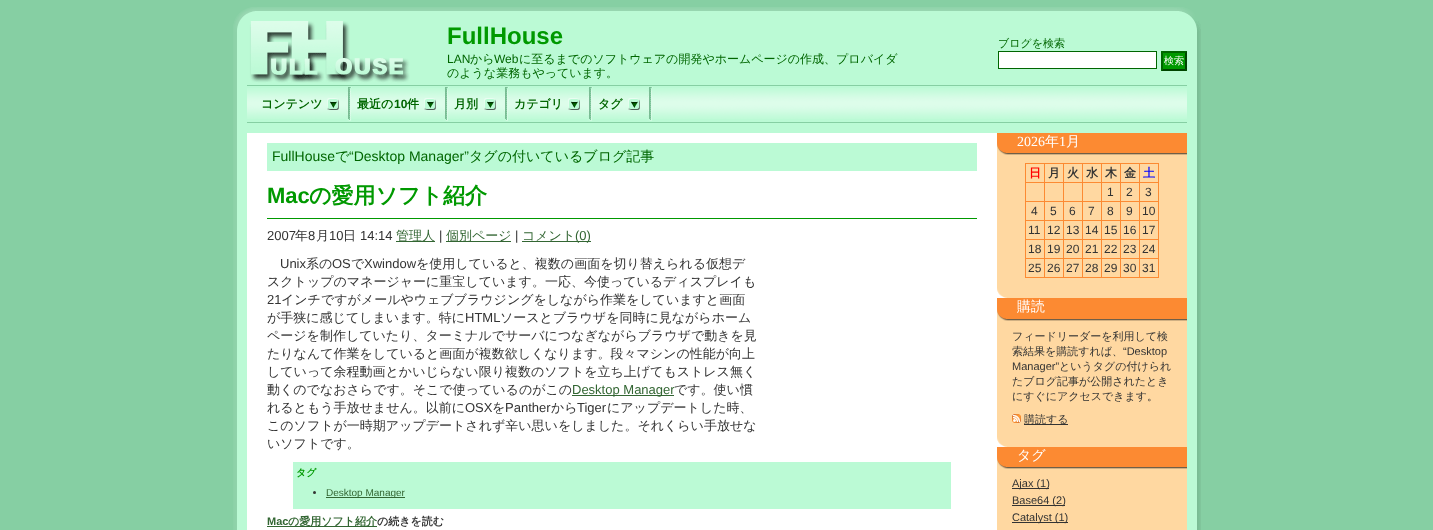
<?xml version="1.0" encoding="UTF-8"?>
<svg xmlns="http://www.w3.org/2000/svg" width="1433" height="530">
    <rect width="100%" height="100%" fill="#86CFA3"/>
    <image x="233" y="7" width="968" height="78" href="img_01.png"/>
    <text x="447" y="44" font-family="Liberation Sans" font-size="24" font-weight="700" fill="#009900">FullHouse</text>
    <text x="998" y="47" font-family="WenQuanYi Zen Hei" font-size="11" font-weight="500" fill="#006600">ブログを検索</text>
    <rect x="998.5" y="51.5" width="158" height="17" fill="#FFFFFF" stroke="#006600"/>
    <rect x="1161" y="51" width="26" height="20" fill="#009900"/>
    <path d="M 1161 51 H 1187 L 1185 53 H 1163 Z" fill="#006600"/>
    <path d="M 1187 51 V 71 L 1185 69 V 53 Z" fill="#004400"/>
    <path d="M 1187 71 H 1161 L 1163 69 H 1185 Z" fill="#004400"/>
    <path d="M 1161 71 V 51 L 1163 53 V 69 Z" fill="#006600"/>
    <text x="1164" y="64" font-family="WenQuanYi Zen Hei" font-size="10" font-weight="500" fill="#FFFFFF">検索</text>
    <text x="447" y="63" font-family="Liberation Sans" font-size="12" fill="#006600">LAN</text>
    <text x="470" y="63" font-family="WenQuanYi Zen Hei" font-size="12" font-weight="500" fill="#006600">から</text>
    <text x="494" y="63" font-family="Liberation Sans" font-size="12" fill="#006600">Web</text>
    <text x="519" y="63" font-family="WenQuanYi Zen Hei" font-size="12" font-weight="500" fill="#006600">に至るまでのソフトウェアの開発やホームページの作成、プロバイダ</text>
    <text x="447" y="77" font-family="WenQuanYi Zen Hei" font-size="12" font-weight="500" fill="#006600">のような業務もやっています。</text>
    <image x="233" y="85" width="968" height="38" href="img_02.png"/>
    <image x="247" y="88" width="940" height="31" href="img_03.png"/>
    <rect x="247" y="85" width="940" height="1" fill="#86CFA3"/>
    <rect x="247" y="122" width="940" height="1" fill="#86CFA3"/>
    <image x="346" y="87" width="6" height="34" href="img_04.png"/>
    <text x="261" y="108" font-family="WenQuanYi Zen Hei" font-size="12" font-weight="700" fill="#006600">コンテンツ</text>
    <image x="327" y="98" width="12" height="12" href="img_05.png"/>
    <image x="443" y="87" width="6" height="34" href="img_04.png"/>
    <text x="357" y="108" font-family="WenQuanYi Zen Hei" font-size="12" font-weight="700" fill="#006600">最近の</text>
    <text x="394" y="108" font-family="Liberation Sans" font-size="12" font-weight="700" fill="#006600">10</text>
    <text x="407" y="108" font-family="WenQuanYi Zen Hei" font-size="12" font-weight="700" fill="#006600">件</text>
    <image x="424" y="98" width="12" height="12" href="img_05.png"/>
    <image x="503" y="87" width="6" height="34" href="img_04.png"/>
    <text x="454" y="108" font-family="WenQuanYi Zen Hei" font-size="12" font-weight="700" fill="#006600">月別</text>
    <image x="484" y="98" width="12" height="12" href="img_05.png"/>
    <image x="587" y="87" width="6" height="34" href="img_04.png"/>
    <text x="514" y="108" font-family="WenQuanYi Zen Hei" font-size="12" font-weight="700" fill="#006600">カテゴリ</text>
    <image x="568" y="98" width="12" height="12" href="img_05.png"/>
    <image x="647" y="87" width="6" height="34" href="img_04.png"/>
    <text x="598" y="108" font-family="WenQuanYi Zen Hei" font-size="12" font-weight="700" fill="#006600">タグ</text>
    <image x="628" y="98" width="12" height="12" href="img_05.png"/>
    <image x="233" y="123" width="968" height="407" href="img_06.png"/>
    <rect x="247" y="133" width="750" height="397" fill="#FFFFFF"/>
    <rect x="267" y="143" width="710" height="28" fill="#BBFAD5"/>
    <text x="272" y="161" font-family="Liberation Sans" font-size="14" fill="#006600">FullHouse</text>
    <text x="335" y="161" font-family="WenQuanYi Zen Hei" font-size="14" font-weight="500" fill="#006600">で</text>
    <text x="349" y="161" font-family="Liberation Sans" font-size="14" fill="#006600">“Desktop Manager”</text>
    <text x="469" y="161" font-family="WenQuanYi Zen Hei" font-size="14" font-weight="500" fill="#006600">タグの付いているブログ記事</text>
    <rect x="267" y="218" width="710" height="1" fill="#009900"/>
    <text x="267" y="203" font-family="Liberation Sans" font-size="22" font-weight="700" fill="#009900">Mac</text>
    <text x="309" y="203" font-family="WenQuanYi Zen Hei" font-size="22" font-weight="700" fill="#009900">の愛用ソフト紹介</text>
    <text x="267" y="240" font-family="Liberation Sans" font-size="13" fill="#333333">2007</text>
    <text x="295" y="240" font-family="WenQuanYi Zen Hei" font-size="13" font-weight="500" fill="#333333">年</text>
    <text x="308" y="240" font-family="Liberation Sans" font-size="13" fill="#333333">8</text>
    <text x="316" y="240" font-family="WenQuanYi Zen Hei" font-size="13" font-weight="500" fill="#333333">月</text>
    <text x="329" y="240" font-family="Liberation Sans" font-size="13" fill="#333333">10</text>
    <text x="343" y="240" font-family="WenQuanYi Zen Hei" font-size="13" font-weight="500" fill="#333333">日</text>
    <text x="360" y="240" font-family="Liberation Sans" font-size="13" fill="#333333">14:14</text>
    <rect x="396" y="241" width="39" height="1" fill="#336633"/>
    <text x="396" y="240" font-family="WenQuanYi Zen Hei" font-size="13" font-weight="500" fill="#336633">管理人</text>
    <text x="439" y="240" font-family="Liberation Sans" font-size="13" fill="#333333">|</text>
    <rect x="446" y="241" width="65" height="1" fill="#336633"/>
    <text x="446" y="240" font-family="WenQuanYi Zen Hei" font-size="13" font-weight="500" fill="#336633">個別ページ</text>
    <text x="515" y="240" font-family="Liberation Sans" font-size="13" fill="#333333">|</text>
    <rect x="522" y="241" width="69" height="1" fill="#336633"/>
    <text x="522" y="240" font-family="WenQuanYi Zen Hei" font-size="13" font-weight="500" fill="#336633">コメント</text>
    <text x="575" y="240" font-family="Liberation Sans" font-size="13" fill="#336633">(0)</text>
    <text x="280" y="268" font-family="Liberation Sans" font-size="13" fill="#333333">Unix</text>
    <text x="306" y="268" font-family="WenQuanYi Zen Hei" font-size="13" font-weight="500" fill="#333333">系の</text>
    <text x="332" y="268" font-family="Liberation Sans" font-size="13" fill="#333333">OS</text>
    <text x="351" y="268" font-family="WenQuanYi Zen Hei" font-size="13" font-weight="500" fill="#333333">で</text>
    <text x="364" y="268" font-family="Liberation Sans" font-size="13" fill="#333333">Xwindow</text>
    <text x="416" y="268" font-family="WenQuanYi Zen Hei" font-size="13" font-weight="500" fill="#333333">を使用していると、複数の画面を切り替えられる仮想デ</text>
    <text x="267" y="286" font-family="WenQuanYi Zen Hei" font-size="13" font-weight="500" fill="#333333">スクトップのマネージャーに重宝しています。一応、今使っているディスプレイも</text>
    <text x="267" y="304" font-family="Liberation Sans" font-size="13" fill="#333333">21</text>
    <text x="281" y="304" font-family="WenQuanYi Zen Hei" font-size="13" font-weight="500" fill="#333333">インチですがメールやウェブブラウジングをしながら作業をしていますと画面</text>
    <text x="267" y="322" font-family="WenQuanYi Zen Hei" font-size="13" font-weight="500" fill="#333333">が手狭に感じてしまいます。特に</text>
    <text x="465" y="322" font-family="Liberation Sans" font-size="13" fill="#333333">HTML</text>
    <text x="500" y="322" font-family="WenQuanYi Zen Hei" font-size="13" font-weight="500" fill="#333333">ソースとブラウザを同時に見ながらホーム</text>
    <text font-family="WenQuanYi Zen Hei" font-size="13" font-weight="500" fill="#333333">
        <tspan x="267" y="340">ページを制作していたり、ターミナルでサーバにつなぎながらブラウザで動きを見</tspan>
        <tspan x="267" y="358">たりなんて作業をしていると画面が複数欲しくなります。段々マシンの性能が向上</tspan>
        <tspan x="267" y="376">していって余程動画とかいじらない限り複数のソフトを立ち上げてもストレス無く</tspan>
        <tspan x="267" y="394">動くのでなおさらです。そこで使っているのがこの</tspan>
    </text>
    <rect x="572" y="395" width="102" height="1" fill="#336633"/>
    <text x="572" y="394" font-family="Liberation Sans" font-size="13" fill="#336633">Desktop Manager</text>
    <text x="674" y="394" font-family="WenQuanYi Zen Hei" font-size="13" font-weight="500" fill="#333333">です。使い慣</text>
    <text x="267" y="412" font-family="WenQuanYi Zen Hei" font-size="13" font-weight="500" fill="#333333">れるともう手放せません。以前に</text>
    <text x="465" y="412" font-family="Liberation Sans" font-size="13" fill="#333333">OSX</text>
    <text x="492" y="412" font-family="WenQuanYi Zen Hei" font-size="13" font-weight="500" fill="#333333">を</text>
    <text x="505" y="412" font-family="Liberation Sans" font-size="13" fill="#333333">Panther</text>
    <text x="551" y="412" font-family="WenQuanYi Zen Hei" font-size="13" font-weight="500" fill="#333333">から</text>
    <text x="577" y="412" font-family="Liberation Sans" font-size="13" fill="#333333">Tiger</text>
    <text x="607" y="412" font-family="WenQuanYi Zen Hei" font-size="13" font-weight="500" fill="#333333">にアップデートした時、</text>
    <text font-family="WenQuanYi Zen Hei" font-size="13" font-weight="500" fill="#333333">
        <tspan x="267" y="430">このソフトが一時期アップデートされず辛い思いをしました。それくらい手放せな</tspan>
        <tspan x="267" y="448">いソフトです。</tspan>
    </text>
    <rect x="293" y="462" width="658" height="47" fill="#BBFAD5"/>
    <text x="296" y="476" font-family="WenQuanYi Zen Hei" font-size="10" font-weight="700" fill="#009900">タグ</text>
    <circle cx="314.5" cy="492.5" r="1.5" fill="#333333"/>
    <rect x="326" y="497" width="79" height="1" fill="#336633"/>
    <text x="326" y="496" font-family="Liberation Sans" font-size="10" fill="#336633">Desktop Manager</text>
    <text x="267" y="525" font-family="Liberation Sans" font-size="11" font-weight="700" fill="#336633">Mac</text>
    <rect x="267" y="526" width="110" height="1" fill="#336633"/>
    <text x="288" y="525" font-family="WenQuanYi Zen Hei" font-size="11" font-weight="700" fill="#336633">の愛用ソフト紹介</text>
    <text x="377" y="525" font-family="WenQuanYi Zen Hei" font-size="11" font-weight="700" fill="#333333">の続きを読む</text>
    <rect x="997" y="155" width="190" height="143" fill="#FFD8A1"/>
    <image x="997" y="288" width="10" height="10" href="img_07.png"/>
    <rect x="997" y="133" width="190" height="10" fill="#FC8A32"/>
    <image x="997" y="143" width="190" height="12" href="img_08.png"/>
    <text x="1017" y="146" font-family="Liberation Serif" font-size="14" fill="#FFFFFF">2026</text>
    <text x="1045" y="146" font-family="WenQuanYi Zen Hei" font-size="14" font-weight="500" fill="#FFFFFF">年</text>
    <text x="1059" y="146" font-family="Liberation Serif" font-size="14" fill="#FFFFFF">1</text>
    <text x="1066" y="146" font-family="WenQuanYi Zen Hei" font-size="14" font-weight="500" fill="#FFFFFF">月</text>
    <rect x="1139" y="163" width="20" height="1" fill="#FC8A32"/>
    <rect x="1139" y="182" width="20" height="1" fill="#FC8A32"/>
    <rect x="1139" y="201" width="20" height="1" fill="#FC8A32"/>
    <rect x="1139" y="220" width="20" height="1" fill="#FC8A32"/>
    <rect x="1139" y="239" width="20" height="1" fill="#FC8A32"/>
    <rect x="1139" y="258" width="20" height="1" fill="#FC8A32"/>
    <rect x="1158" y="258" width="1" height="20" fill="#FC8A32"/>
    <rect x="1139" y="277" width="20" height="1" fill="#FC8A32"/>
    <rect x="1139" y="258" width="1" height="20" fill="#FC8A32"/>
    <rect x="1120" y="258" width="20" height="1" fill="#FC8A32"/>
    <rect x="1139" y="239" width="1" height="20" fill="#FC8A32"/>
    <rect x="1120" y="239" width="20" height="1" fill="#FC8A32"/>
    <rect x="1139" y="220" width="1" height="20" fill="#FC8A32"/>
    <rect x="1120" y="220" width="20" height="1" fill="#FC8A32"/>
    <rect x="1139" y="201" width="1" height="20" fill="#FC8A32"/>
    <rect x="1120" y="201" width="20" height="1" fill="#FC8A32"/>
    <rect x="1139" y="182" width="1" height="20" fill="#FC8A32"/>
    <rect x="1120" y="182" width="20" height="1" fill="#FC8A32"/>
    <rect x="1139" y="163" width="1" height="20" fill="#FC8A32"/>
    <rect x="1120" y="163" width="20" height="1" fill="#FC8A32"/>
    <rect x="1120" y="277" width="20" height="1" fill="#FC8A32"/>
    <rect x="1120" y="258" width="1" height="20" fill="#FC8A32"/>
    <rect x="1101" y="258" width="20" height="1" fill="#FC8A32"/>
    <rect x="1120" y="239" width="1" height="20" fill="#FC8A32"/>
    <rect x="1101" y="239" width="20" height="1" fill="#FC8A32"/>
    <rect x="1120" y="220" width="1" height="20" fill="#FC8A32"/>
    <rect x="1101" y="220" width="20" height="1" fill="#FC8A32"/>
    <rect x="1120" y="201" width="1" height="20" fill="#FC8A32"/>
    <rect x="1101" y="201" width="20" height="1" fill="#FC8A32"/>
    <rect x="1120" y="182" width="1" height="20" fill="#FC8A32"/>
    <rect x="1101" y="182" width="20" height="1" fill="#FC8A32"/>
    <rect x="1120" y="163" width="1" height="20" fill="#FC8A32"/>
    <rect x="1101" y="163" width="20" height="1" fill="#FC8A32"/>
    <rect x="1101" y="277" width="20" height="1" fill="#FC8A32"/>
    <rect x="1101" y="258" width="1" height="20" fill="#FC8A32"/>
    <rect x="1082" y="258" width="20" height="1" fill="#FC8A32"/>
    <rect x="1101" y="239" width="1" height="20" fill="#FC8A32"/>
    <rect x="1082" y="239" width="20" height="1" fill="#FC8A32"/>
    <rect x="1101" y="220" width="1" height="20" fill="#FC8A32"/>
    <rect x="1082" y="220" width="20" height="1" fill="#FC8A32"/>
    <rect x="1101" y="201" width="1" height="20" fill="#FC8A32"/>
    <rect x="1082" y="201" width="20" height="1" fill="#FC8A32"/>
    <rect x="1101" y="182" width="1" height="20" fill="#FC8A32"/>
    <rect x="1082" y="182" width="20" height="1" fill="#FC8A32"/>
    <rect x="1101" y="163" width="1" height="20" fill="#FC8A32"/>
    <rect x="1082" y="163" width="20" height="1" fill="#FC8A32"/>
    <rect x="1082" y="277" width="20" height="1" fill="#FC8A32"/>
    <rect x="1082" y="258" width="1" height="20" fill="#FC8A32"/>
    <rect x="1063" y="258" width="20" height="1" fill="#FC8A32"/>
    <rect x="1082" y="239" width="1" height="20" fill="#FC8A32"/>
    <rect x="1063" y="239" width="20" height="1" fill="#FC8A32"/>
    <rect x="1082" y="220" width="1" height="20" fill="#FC8A32"/>
    <rect x="1063" y="220" width="20" height="1" fill="#FC8A32"/>
    <rect x="1082" y="201" width="1" height="20" fill="#FC8A32"/>
    <rect x="1063" y="201" width="20" height="1" fill="#FC8A32"/>
    <rect x="1082" y="182" width="1" height="20" fill="#FC8A32"/>
    <rect x="1063" y="182" width="20" height="1" fill="#FC8A32"/>
    <rect x="1082" y="163" width="1" height="20" fill="#FC8A32"/>
    <rect x="1063" y="163" width="20" height="1" fill="#FC8A32"/>
    <rect x="1063" y="277" width="20" height="1" fill="#FC8A32"/>
    <rect x="1063" y="258" width="1" height="20" fill="#FC8A32"/>
    <rect x="1044" y="258" width="20" height="1" fill="#FC8A32"/>
    <rect x="1063" y="239" width="1" height="20" fill="#FC8A32"/>
    <rect x="1044" y="239" width="20" height="1" fill="#FC8A32"/>
    <rect x="1063" y="220" width="1" height="20" fill="#FC8A32"/>
    <rect x="1044" y="220" width="20" height="1" fill="#FC8A32"/>
    <rect x="1063" y="201" width="1" height="20" fill="#FC8A32"/>
    <rect x="1044" y="201" width="20" height="1" fill="#FC8A32"/>
    <rect x="1063" y="182" width="1" height="20" fill="#FC8A32"/>
    <rect x="1044" y="182" width="20" height="1" fill="#FC8A32"/>
    <rect x="1063" y="163" width="1" height="20" fill="#FC8A32"/>
    <rect x="1044" y="163" width="20" height="1" fill="#FC8A32"/>
    <rect x="1044" y="277" width="20" height="1" fill="#FC8A32"/>
    <rect x="1044" y="258" width="1" height="20" fill="#FC8A32"/>
    <rect x="1025" y="258" width="20" height="1" fill="#FC8A32"/>
    <rect x="1044" y="239" width="1" height="20" fill="#FC8A32"/>
    <rect x="1025" y="239" width="20" height="1" fill="#FC8A32"/>
    <rect x="1044" y="220" width="1" height="20" fill="#FC8A32"/>
    <rect x="1025" y="220" width="20" height="1" fill="#FC8A32"/>
    <rect x="1044" y="201" width="1" height="20" fill="#FC8A32"/>
    <rect x="1025" y="201" width="20" height="1" fill="#FC8A32"/>
    <rect x="1044" y="182" width="1" height="20" fill="#FC8A32"/>
    <rect x="1025" y="182" width="20" height="1" fill="#FC8A32"/>
    <rect x="1044" y="163" width="1" height="20" fill="#FC8A32"/>
    <rect x="1025" y="163" width="20" height="1" fill="#FC8A32"/>
    <rect x="1025" y="277" width="20" height="1" fill="#FC8A32"/>
    <rect x="1025" y="258" width="1" height="20" fill="#FC8A32"/>
    <rect x="1025" y="239" width="1" height="20" fill="#FC8A32"/>
    <rect x="1025" y="220" width="1" height="20" fill="#FC8A32"/>
    <rect x="1025" y="201" width="1" height="20" fill="#FC8A32"/>
    <rect x="1025" y="182" width="1" height="20" fill="#FC8A32"/>
    <rect x="1025" y="163" width="1" height="20" fill="#FC8A32"/>
    <text x="1029" y="177" font-family="WenQuanYi Zen Hei" font-size="12" font-weight="700" fill="#FF0000">日</text>
    <text x="1048" y="177" font-family="WenQuanYi Zen Hei" font-size="12" font-weight="700" fill="#333333">月</text>
    <text x="1067" y="177" font-family="WenQuanYi Zen Hei" font-size="12" font-weight="700" fill="#333333">火</text>
    <text x="1086" y="177" font-family="WenQuanYi Zen Hei" font-size="12" font-weight="700" fill="#333333">水</text>
    <text x="1105" y="177" font-family="WenQuanYi Zen Hei" font-size="12" font-weight="700" fill="#333333">木</text>
    <text x="1124" y="177" font-family="WenQuanYi Zen Hei" font-size="12" font-weight="700" fill="#333333">金</text>
    <rect x="1158" y="239" width="1" height="20" fill="#FC8A32"/>
    <rect x="1158" y="220" width="1" height="20" fill="#FC8A32"/>
    <rect x="1158" y="201" width="1" height="20" fill="#FC8A32"/>
    <rect x="1158" y="182" width="1" height="20" fill="#FC8A32"/>
    <rect x="1158" y="163" width="1" height="20" fill="#FC8A32"/>
    <text x="1143" y="177" font-family="WenQuanYi Zen Hei" font-size="12" font-weight="700" fill="#0000FF">土</text>
    <text x="1107" y="196" font-family="Liberation Sans" font-size="12" fill="#333333">1</text>
    <text x="1126" y="196" font-family="Liberation Sans" font-size="12" fill="#333333">2</text>
    <text x="1145" y="196" font-family="Liberation Sans" font-size="12" fill="#333333">3</text>
    <text x="1031" y="215" font-family="Liberation Sans" font-size="12" fill="#333333">4</text>
    <text x="1050" y="215" font-family="Liberation Sans" font-size="12" fill="#333333">5</text>
    <text x="1069" y="215" font-family="Liberation Sans" font-size="12" fill="#333333">6</text>
    <text x="1088" y="215" font-family="Liberation Sans" font-size="12" fill="#333333">7</text>
    <text x="1107" y="215" font-family="Liberation Sans" font-size="12" fill="#333333">8</text>
    <text x="1126" y="215" font-family="Liberation Sans" font-size="12" fill="#333333">9</text>
    <text x="1142" y="215" font-family="Liberation Sans" font-size="12" fill="#333333">10</text>
    <text x="1028" y="234" font-family="Liberation Sans" font-size="12" fill="#333333">11</text>
    <text x="1047" y="234" font-family="Liberation Sans" font-size="12" fill="#333333">12</text>
    <text x="1066" y="234" font-family="Liberation Sans" font-size="12" fill="#333333">13</text>
    <text x="1085" y="234" font-family="Liberation Sans" font-size="12" fill="#333333">14</text>
    <text x="1104" y="234" font-family="Liberation Sans" font-size="12" fill="#333333">15</text>
    <text x="1123" y="234" font-family="Liberation Sans" font-size="12" fill="#333333">16</text>
    <text x="1142" y="234" font-family="Liberation Sans" font-size="12" fill="#333333">17</text>
    <text x="1028" y="253" font-family="Liberation Sans" font-size="12" fill="#333333">18</text>
    <text x="1047" y="253" font-family="Liberation Sans" font-size="12" fill="#333333">19</text>
    <text x="1066" y="253" font-family="Liberation Sans" font-size="12" fill="#333333">20</text>
    <text x="1085" y="253" font-family="Liberation Sans" font-size="12" fill="#333333">21</text>
    <text x="1104" y="253" font-family="Liberation Sans" font-size="12" fill="#333333">22</text>
    <text x="1123" y="253" font-family="Liberation Sans" font-size="12" fill="#333333">23</text>
    <text x="1142" y="253" font-family="Liberation Sans" font-size="12" fill="#333333">24</text>
    <text x="1028" y="272" font-family="Liberation Sans" font-size="12" fill="#333333">25</text>
    <text x="1047" y="272" font-family="Liberation Sans" font-size="12" fill="#333333">26</text>
    <text x="1066" y="272" font-family="Liberation Sans" font-size="12" fill="#333333">27</text>
    <text x="1085" y="272" font-family="Liberation Sans" font-size="12" fill="#333333">28</text>
    <text x="1104" y="272" font-family="Liberation Sans" font-size="12" fill="#333333">29</text>
    <text x="1123" y="272" font-family="Liberation Sans" font-size="12" fill="#333333">30</text>
    <text x="1142" y="272" font-family="Liberation Sans" font-size="12" fill="#333333">31</text>
    <rect x="997" y="321" width="190" height="126" fill="#FFD8A1"/>
    <image x="997" y="437" width="10" height="10" href="img_07.png"/>
    <rect x="997" y="298" width="190" height="11" fill="#FC8A32"/>
    <image x="997" y="309" width="190" height="12" href="img_08.png"/>
    <text x="1017" y="311" font-family="WenQuanYi Zen Hei" font-size="14" font-weight="500" fill="#FFFFFF">購読</text>
    <text font-family="WenQuanYi Zen Hei" font-size="11" font-weight="500" fill="#333333">
        <tspan x="1012" y="340">フィードリーダーを利用して検</tspan>
        <tspan x="1012" y="355">索結果を購読すれば、</tspan>
    </text>
    <text x="1123" y="355" font-family="Liberation Sans" font-size="11" fill="#333333">“Desktop</text>
    <text x="1012" y="370" font-family="Liberation Sans" font-size="11" fill="#333333">Manager”</text>
    <text x="1059" y="370" font-family="WenQuanYi Zen Hei" font-size="11" font-weight="500" fill="#333333">というタグの付けられ</text>
    <text font-family="WenQuanYi Zen Hei" font-size="11" font-weight="500" fill="#333333">
        <tspan x="1012" y="385">たブログ記事が公開されたとき</tspan>
        <tspan x="1012" y="400">にすぐにアクセスできます。</tspan>
    </text>
    <image x="1012" y="414" width="9" height="9" href="img_09.png"/>
    <rect x="1024" y="424" width="44" height="1" fill="#333333"/>
    <text x="1024" y="423" font-family="WenQuanYi Zen Hei" font-size="11" font-weight="500" fill="#333333">購読する</text>
    <rect x="997" y="469" width="190" height="61" fill="#FFD8A1"/>
    <rect x="997" y="447" width="190" height="10" fill="#FC8A32"/>
    <image x="997" y="457" width="190" height="12" href="img_08.png"/>
    <text x="1017" y="460" font-family="WenQuanYi Zen Hei" font-size="14" font-weight="500" fill="#FFFFFF">タグ</text>
    <rect x="1012" y="488" width="37" height="1" fill="#333333"/>
    <text x="1012" y="487" font-family="Liberation Sans" font-size="11" fill="#333333">Ajax (1)</text>
    <rect x="1012" y="505" width="53" height="1" fill="#333333"/>
    <text x="1012" y="504" font-family="Liberation Sans" font-size="11" fill="#333333">Base64 (2)</text>
    <rect x="1012" y="522" width="56" height="1" fill="#333333"/>
    <text x="1012" y="521" font-family="Liberation Sans" font-size="11" fill="#333333">Catalyst (1)</text>
</svg>
